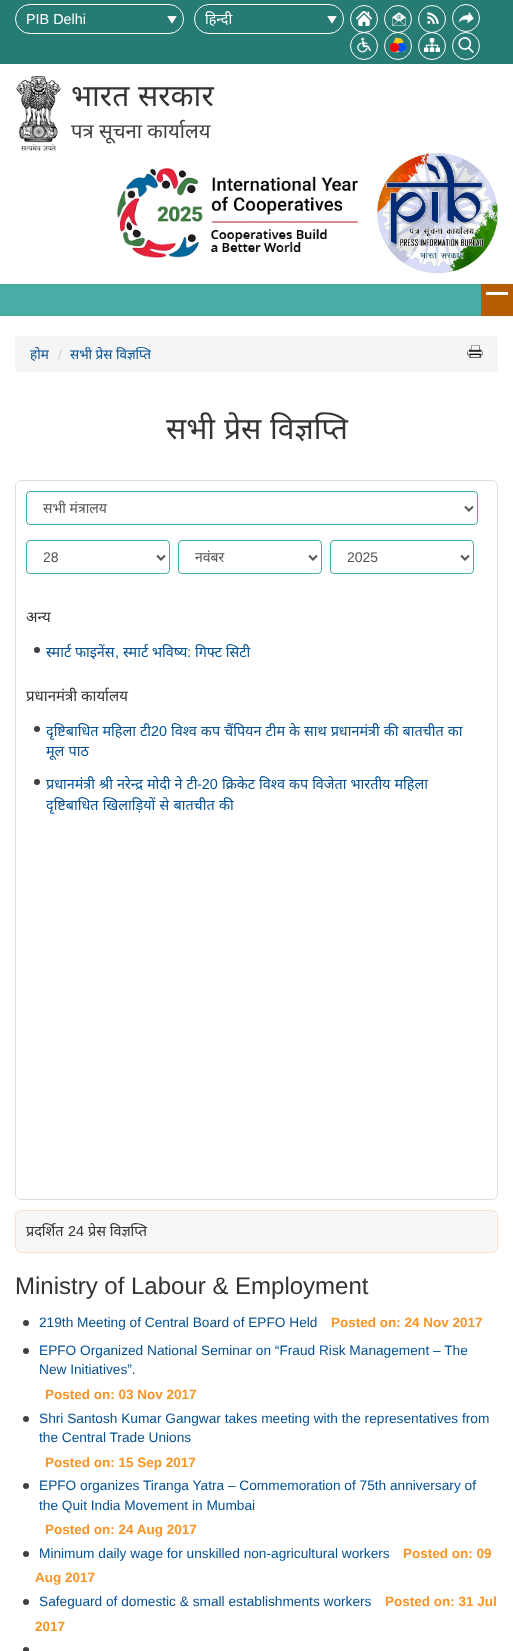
<?xml version="1.0" encoding="UTF-8"?>
<svg xmlns="http://www.w3.org/2000/svg" width="513" height="1651">
    <rect width="100%" height="100%" fill="#FFFFFF"/>
    <rect x="0" y="0" width="513" height="64" fill="#267B74"/>
    <image x="167" y="16" width="10" height="8" href="img_01.png"/>
    <path d="M 30 6 H 169 C 177 6 183 12 183 19 C 184 0 156 5 146 5 H 53 C 43 5 15 0 16 19 C 16 12 22 6 30 6 Z" fill="#23726B"/>
    <rect x="15.5" y="4.5" width="168" height="29" rx="14.5" fill="none" stroke="#FFFFFF"/>
    <text x="26" y="24" font-family="Liberation Sans" font-size="14.4" fill="#FFFFFF">PIB Delhi</text>
    <image x="327" y="16" width="10" height="8" href="img_01.png"/>
    <path d="M 209 6 H 329 C 337 6 343 12 343 19 C 344 1 320 5 309 5 H 229 C 218 5 194 1 195 19 C 195 12 201 6 209 6 Z" fill="#23726B"/>
    <rect x="194.5" y="4.5" width="149" height="29" rx="14.5" fill="none" stroke="#FFFFFF"/>
    <text x="205" y="24" font-family="Noto Sans" font-size="14.4" fill="#FFFFFF">हिन्दी</text>
    <image x="356" y="11" width="16" height="15" href="img_02.png"/>
    <circle cx="364" cy="19" r="13.5" fill="none" stroke="#FFFFFF"/>
    <image x="392" y="12" width="14" height="14" href="img_03.png"/>
    <circle cx="398" cy="19" r="13.5" fill="none" stroke="#FFFFFF"/>
    <image x="427" y="12" width="12" height="12" href="img_04.png"/>
    <circle cx="432" cy="19" r="13.5" fill="none" stroke="#FFFFFF"/>
    <circle cx="466" cy="18" r="13.5" fill="none" stroke="#FFFFFF"/>
    <image x="458" y="11" width="16" height="13" href="img_05.png"/>
    <circle cx="364" cy="46" r="13.5" fill="none" stroke="#FFFFFF"/>
    <image x="357" y="37" width="14" height="16" href="img_06.png"/>
    <circle cx="398" cy="46" r="13.5" fill="none" stroke="#FFFFFF"/>
    <image x="390" y="37" width="16" height="16" href="img_07.png"/>
    <circle cx="432" cy="46" r="13.5" fill="none" stroke="#FFFFFF"/>
    <image x="424" y="38" width="16" height="14" href="img_08.png"/>
    <circle cx="466" cy="46" r="13.5" fill="none" stroke="#FFFFFF"/>
    <image x="458" y="37" width="16" height="16" href="img_09.png"/>
    <image x="16" y="76" width="45" height="75" href="img_10.png"/>
    <text x="71" y="106" word-spacing="1" font-family="Noto Sans" font-size="30" fill="#333333">भारत सरकार</text>
    <text x="71" y="138" font-family="Noto Sans" font-size="20.25" fill="#404040">पत्र सूचना कार्यालय</text>
    <image x="117" y="168" width="241" height="90" href="img_11.png"/>
    <image x="377" y="153" width="121" height="121" href="img_12.png"/>
    <rect x="0" y="284" width="481" height="32" fill="#48ADA5"/>
    <rect x="481" y="284" width="32" height="32" fill="#B55D00"/>
    <rect x="486" y="292" width="22" height="3" fill="#FFFFFF"/>
    <rect x="15" y="336" width="483" height="36" rx="4" fill="#F5F5F5"/>
    <text x="30" y="359" font-family="Noto Sans" font-size="13.5" fill="#055193">होम</text>
    <text x="58" y="359" font-family="Liberation Sans" font-size="13.5" fill="#CCCCCC">/</text>
    <text x="70" y="359" font-family="Noto Sans" font-size="13.5" fill="#055193">सभी प्रेस विज्ञप्ति</text>
    <image x="467" y="345" width="16" height="13" href="img_13.png"/>
    <text x="166" y="439" word-spacing="1" font-family="Noto Sans" font-size="30" fill="#333333">सभी प्रेस विज्ञप्ति</text>
    <rect x="15.5" y="480.5" width="482" height="719" rx="5.5" fill="none" stroke="#DDDDDD"/>
    <rect x="26.5" y="491.5" width="451" height="33" rx="3.5" fill="none" stroke="#48ADA5"/>
    <path d="M 465 506.5 L 469 510.5 L 473 506.5" fill="none" stroke="#555555" stroke-width="2"/>
    <text x="43" y="513" font-family="Noto Sans" font-size="14" fill="#555555">सभी मंत्रालय</text>
    <rect x="26.5" y="540.5" width="143" height="33" rx="3.5" fill="none" stroke="#48ADA5"/>
    <path d="M 157 555.5 L 161 559.5 L 165 555.5" fill="none" stroke="#555555" stroke-width="2"/>
    <text x="43" y="562" font-family="Liberation Sans" font-size="14" fill="#555555">28</text>
    <rect x="178.5" y="540.5" width="143" height="33" rx="3.5" fill="none" stroke="#48ADA5"/>
    <path d="M 309 555.5 L 313 559.5 L 317 555.5" fill="none" stroke="#555555" stroke-width="2"/>
    <text x="195" y="562" font-family="Noto Sans" font-size="14" fill="#555555">नवंबर</text>
    <rect x="330.5" y="540.5" width="143" height="33" rx="3.5" fill="none" stroke="#48ADA5"/>
    <path d="M 461 555.5 L 465 559.5 L 469 555.5" fill="none" stroke="#555555" stroke-width="2"/>
    <text x="347" y="562" font-family="Liberation Sans" font-size="14" fill="#555555">2025</text>
    <text x="26" y="622" font-family="Noto Sans" font-size="15" fill="#333333">अन्य</text>
    <circle cx="37" cy="650" r="3" fill="#404040"/>
    <text x="46" y="657" font-family="Noto Sans" font-size="14.4" fill="#055193">स्मार्ट फाइनेंस</text>
    <text x="115" y="657" font-family="Liberation Sans" font-size="14.4" fill="#055193">,</text>
    <text x="123" y="657" font-family="Noto Sans" font-size="14.4" fill="#055193">स्मार्ट भविष्य</text>
    <text x="187" y="657" font-family="Liberation Sans" font-size="14.4" fill="#055193">:</text>
    <text x="195" y="657" font-family="Noto Sans" font-size="14.4" fill="#055193">गिफ्ट सिटी</text>
    <text x="26" y="701" font-family="Noto Sans" font-size="15" fill="#333333">प्रधानमंत्री कार्यालय</text>
    <circle cx="37" cy="729" r="3" fill="#404040"/>
    <text x="46" y="736" word-spacing="0.25" font-family="Noto Sans" font-size="14.4" fill="#055193">दृष्टिबाधित महिला टी</text>
    <text x="151" y="736" font-family="Liberation Sans" font-size="14.4" fill="#055193">20</text>
    <text x="171" y="736" word-spacing="0.25" font-family="Noto Sans" font-size="14.4" fill="#055193">विश्व कप चैंपियन टीम के साथ प्रधानमंत्री की बातचीत का</text>
    <text x="46" y="756" word-spacing="0.5" font-family="Noto Sans" font-size="14.4" fill="#055193">मूल पाठ</text>
    <circle cx="37" cy="782" r="3" fill="#404040"/>
    <text x="46" y="789" word-spacing="0.25" font-family="Noto Sans" font-size="14.4" fill="#055193">प्रधानमंत्री श्री नरेन्द्र मोदी ने टी</text>
    <text x="197" y="789" font-family="Liberation Sans" font-size="14.4" fill="#055193">-20</text>
    <text x="222" y="789" word-spacing="0.25" font-family="Noto Sans" font-size="14.4" fill="#055193">क्रिकेट विश्व कप विजेता भारतीय महिला</text>
    <text x="46" y="810" word-spacing="0.5" font-family="Noto Sans" font-size="14.4" fill="#055193">दृष्टिबाधित खिलाड़ियों से बातचीत की</text>
    <rect x="15.5" y="1210.5" width="482" height="42" rx="5.5" fill="#F7F7F7" stroke="#FAE3CB"/>
    <text x="26" y="1236" font-family="Noto Sans" font-size="14.4" fill="#333333">प्रदर्शित</text>
    <text x="68" y="1236" font-family="Liberation Sans" font-size="14.4" fill="#333333">24</text>
    <text x="88" y="1236" font-family="Noto Sans" font-size="14.4" fill="#333333">प्रेस विज्ञप्ति</text>
    <text x="15" y="1294" font-family="Liberation Sans" font-size="24" fill="#333333">Ministry of Labour &amp; Employment</text>
    <circle cx="26" cy="1323" r="3" fill="#404040"/>
    <text x="39" y="1327" font-family="Liberation Sans" font-size="13.7" fill="#055193">219th Meeting of Central Board of EPFO Held</text>
    <text x="331" y="1327" font-family="Liberation Sans" font-size="13.5" font-weight="700" fill="#F99426">Posted on: 24 Nov 2017</text>
    <circle cx="26" cy="1351" r="3" fill="#404040"/>
    <text font-family="Liberation Sans" font-size="13.7" fill="#055193">
        <tspan x="39" y="1355">EPFO Organized National Seminar on “Fraud Risk Management – The</tspan>
        <tspan x="39" y="1374">New Initiatives”.</tspan>
    </text>
    <text x="45" y="1399" font-family="Liberation Sans" font-size="13.5" font-weight="700" fill="#F99426">Posted on: 03 Nov 2017</text>
    <circle cx="26" cy="1419" r="3" fill="#404040"/>
    <text font-family="Liberation Sans" font-size="13.7" fill="#055193">
        <tspan x="39" y="1423">Shri Santosh Kumar Gangwar takes meeting with the representatives from</tspan>
        <tspan x="39" y="1442">the Central Trade Unions</tspan>
    </text>
    <text x="45" y="1467" font-family="Liberation Sans" font-size="13.5" font-weight="700" fill="#F99426">Posted on: 15 Sep 2017</text>
    <circle cx="26" cy="1486" r="3" fill="#404040"/>
    <text font-family="Liberation Sans" font-size="13.7" fill="#055193">
        <tspan x="39" y="1490">EPFO organizes Tiranga Yatra – Commemoration of 75th anniversary of</tspan>
        <tspan x="39" y="1510">the Quit India Movement in Mumbai</tspan>
    </text>
    <text x="45" y="1534" font-family="Liberation Sans" font-size="13.5" font-weight="700" fill="#F99426">Posted on: 24 Aug 2017</text>
    <circle cx="26" cy="1554" r="3" fill="#404040"/>
    <text x="39" y="1558" font-family="Liberation Sans" font-size="13.7" fill="#055193">Minimum daily wage for unskilled non-agricultural workers</text>
    <text x="403" y="1558" font-family="Liberation Sans" font-size="13.5" font-weight="700" fill="#F99426">Posted on: 09</text>
    <text x="35" y="1582" font-family="Liberation Sans" font-size="13.5" font-weight="700" fill="#F99426">Aug 2017</text>
    <circle cx="26" cy="1602" r="3" fill="#404040"/>
    <text x="39" y="1606" font-family="Liberation Sans" font-size="13.7" fill="#055193">Safeguard of domestic &amp; small establishments workers</text>
    <text x="385" y="1606" font-family="Liberation Sans" font-size="13.5" font-weight="700" fill="#F99426">Posted on: 31 Jul</text>
    <text x="35" y="1631" font-family="Liberation Sans" font-size="13.5" font-weight="700" fill="#F99426">2017</text>
    <circle cx="26" cy="1650" r="3" fill="#404040"/>
</svg>
